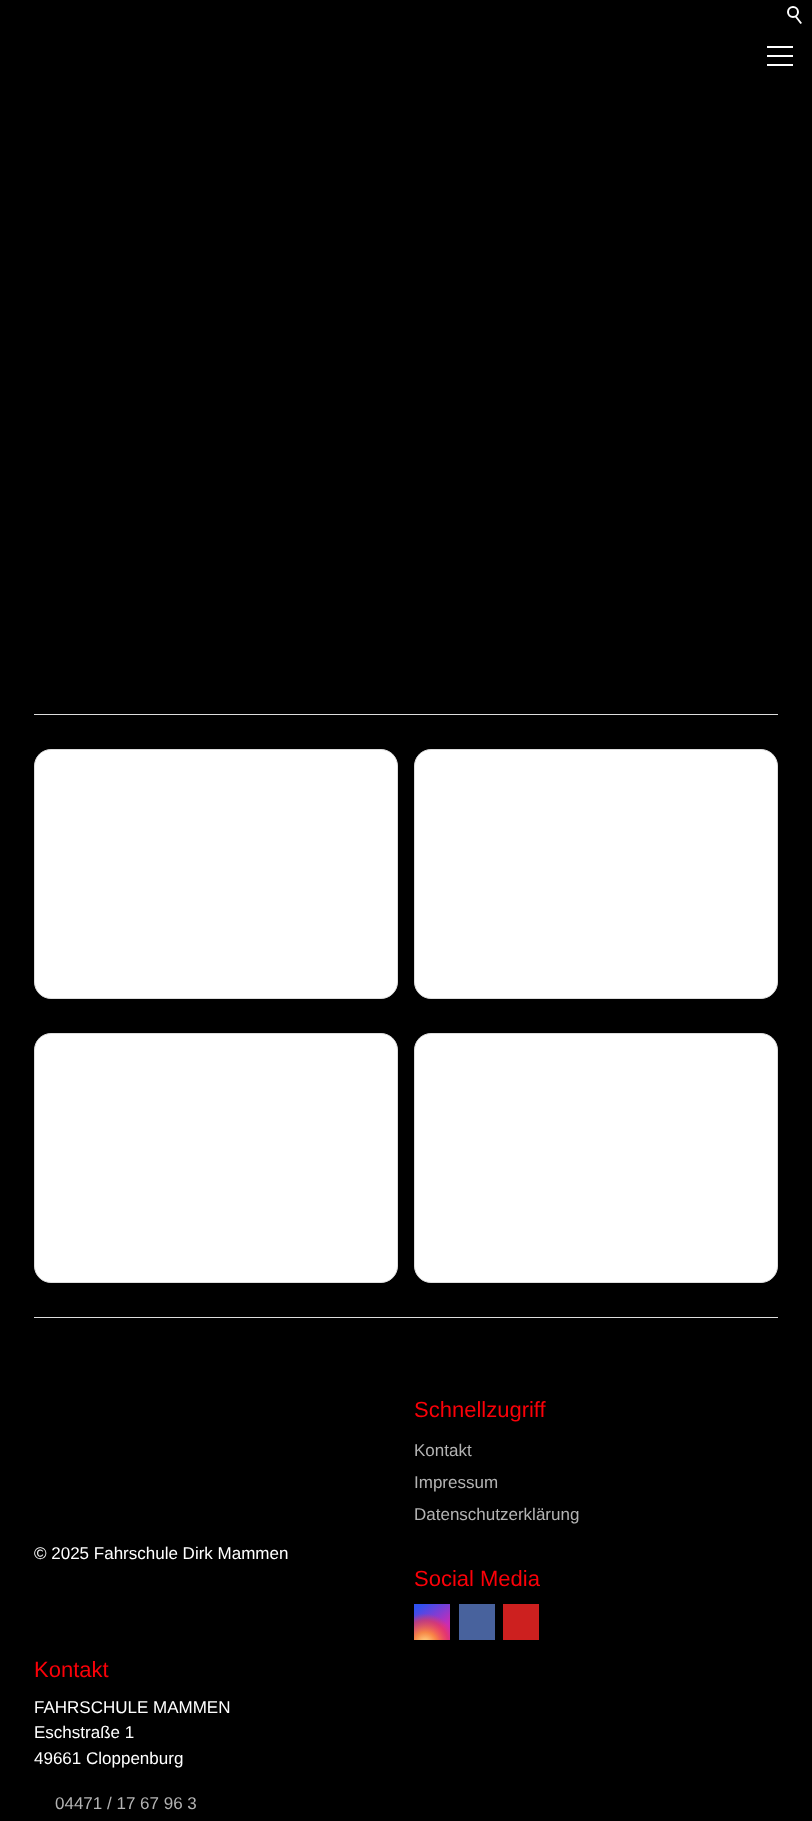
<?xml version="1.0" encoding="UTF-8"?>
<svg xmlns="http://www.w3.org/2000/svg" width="812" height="1821">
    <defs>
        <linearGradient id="g1" gradientUnits="userSpaceOnUse" x1="418" y1="1601" x2="446" y2="1643"><stop offset="0.1" stop-color="#3051F1"/><stop offset="0.7" stop-color="#C92BB7"/></linearGradient>
        <radialGradient id="g2" gradientUnits="userSpaceOnUse" cx="425" cy="1644" r="47"><stop offset="0" stop-color="#FFE993"/><stop offset="0.25" stop-color="#FF9138" stop-opacity="0.89"/><stop offset="0.5" stop-color="#F73C3C" stop-opacity="0.55"/><stop offset="0.65" stop-color="#F73C3C" stop-opacity="0"/></radialGradient>
    </defs>
    <rect width="100%" height="100%" fill="#000000"/>
    <circle cx="793" cy="12" r="5" fill="none" stroke="#FFFFFF" stroke-width="2"/>
    <path d="M 796.5 16 L 802 23 L 800.5 24 L 795 17 Z" fill="#FFFFFF"/>
    <rect x="767" y="46" width="26" height="2" fill="#FFFFFF"/>
    <rect x="767" y="55" width="26" height="2" fill="#FFFFFF"/>
    <rect x="767" y="64" width="26" height="2" fill="#FFFFFF"/>
    <rect x="34" y="714" width="744" height="1" fill="#DDDDDD"/>
    <rect x="34.5" y="749.5" width="363" height="249" rx="16.5" fill="#FFFFFF" stroke="#DDDDDD"/>
    <rect x="34.5" y="1033.5" width="363" height="249" rx="16.5" fill="#FFFFFF" stroke="#DDDDDD"/>
    <rect x="414.5" y="749.5" width="363" height="249" rx="16.5" fill="#FFFFFF" stroke="#DDDDDD"/>
    <rect x="414.5" y="1033.5" width="363" height="249" rx="16.5" fill="#FFFFFF" stroke="#DDDDDD"/>
    <rect x="34" y="1317" width="744" height="1" fill="#DDDDDD"/>
    <text x="414" y="1417" font-family="Liberation Sans" font-size="22" fill="#FB0008">Schnellzugriff</text>
    <text font-family="Liberation Sans" font-size="17" fill="#B3B3B3">
        <tspan x="414" y="1456">Kontakt</tspan>
        <tspan x="414" y="1488">Impressum</tspan>
        <tspan x="414" y="1520">Datenschutzerklärung</tspan>
    </text>
    <text x="34" y="1559" font-family="Liberation Sans" font-size="17" fill="#FFFFFF">© 2025 Fahrschule Dirk Mammen</text>
    <text x="414" y="1586" font-family="Liberation Sans" font-size="22" fill="#FB0008">Social Media</text>
    <rect x="414" y="1604" width="36" height="36" fill="url(#g1)"/>
    <rect x="414" y="1614" width="36" height="26" fill="url(#g2)"/>
    <rect x="459" y="1604" width="36" height="36" fill="#48629D"/>
    <rect x="503" y="1604" width="36" height="36" fill="#CD201F"/>
    <text x="34" y="1677" font-family="Liberation Sans" font-size="22" fill="#FB0008">Kontakt</text>
    <text font-family="Liberation Sans" font-size="17" fill="#FFFFFF">
        <tspan x="34" y="1713">FAHRSCHULE MAMMEN</tspan>
        <tspan x="34" y="1738">Eschstraße 1</tspan>
        <tspan x="34" y="1764">49661 Cloppenburg</tspan>
    </text>
    <text x="55" y="1809" font-family="Liberation Sans" font-size="17" fill="#B3B3B3">04471 / 17 67 96 3</text>
</svg>
